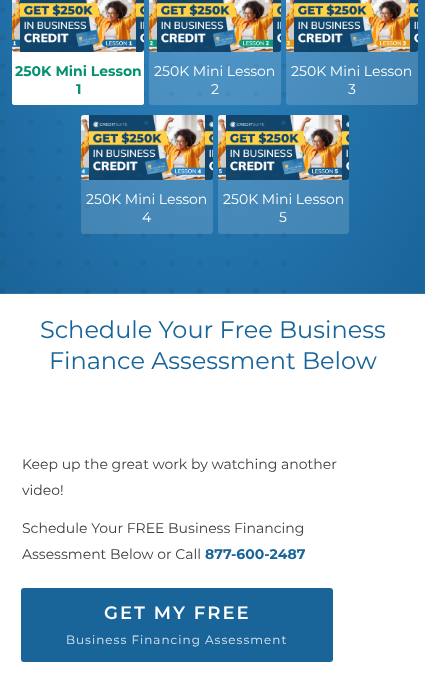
<?xml version="1.0" encoding="UTF-8"?>
<svg xmlns="http://www.w3.org/2000/svg" width="425" height="684">
    <rect width="100%" height="100%" fill="#FFFFFF"/>
    <image x="0" y="0" width="425" height="294" href="img_01.png"/>
    <rect x="12" y="-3" width="132" height="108" rx="3" fill="#FFFFFF"/>
    <rect x="12" y="-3" width="132" height="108" rx="3" fill="#FFFFFF" fill-opacity="0.95"/>
    <image x="12" y="0" width="132" height="52" href="img_02.png"/>
    <text x="15" y="76" font-family="Montserrat" font-size="14" font-weight="700" fill="#04916F">250K Mini Lesson</text>
    <text x="76" y="94" font-family="Montserrat" font-size="14" font-weight="700" fill="#04916F">1</text>
    <rect x="149" y="-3" width="132" height="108" rx="3" fill="#FFFFFF" fill-opacity="0.16"/>
    <image x="149" y="0" width="132" height="52" href="img_03.png"/>
    <text x="154" y="76" font-family="Montserrat" font-size="14" fill="#FFFFFF">250K Mini Lesson</text>
    <text x="211" y="94" font-family="Montserrat" font-size="14" fill="#FFFFFF">2</text>
    <rect x="286" y="-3" width="132" height="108" rx="3" fill="#FFFFFF" fill-opacity="0.16"/>
    <image x="286" y="0" width="132" height="52" href="img_04.png"/>
    <text x="291" y="76" font-family="Montserrat" font-size="14" fill="#FFFFFF">250K Mini Lesson</text>
    <text x="348" y="94" font-family="Montserrat" font-size="14" fill="#FFFFFF">3</text>
    <rect x="81" y="115" width="132" height="119" rx="3" fill="#FFFFFF" fill-opacity="0.16"/>
    <image x="81" y="115" width="132" height="65" href="img_05.png"/>
    <text x="86" y="204" font-family="Montserrat" font-size="14" fill="#FFFFFF">250K Mini Lesson</text>
    <text x="142" y="222" font-family="Montserrat" font-size="14" fill="#FFFFFF">4</text>
    <rect x="218" y="115" width="131" height="119" rx="3" fill="#FFFFFF" fill-opacity="0.16"/>
    <image x="218" y="115" width="131" height="65" href="img_06.png"/>
    <text x="223" y="204" font-family="Montserrat" font-size="14" fill="#FFFFFF">250K Mini Lesson</text>
    <text x="279" y="222" font-family="Montserrat" font-size="14" fill="#FFFFFF">5</text>
    <text x="40" y="338" font-family="Montserrat" font-size="24" fill="#196499">Schedule Your Free Business</text>
    <text x="49" y="369" font-family="Montserrat" font-size="24" fill="#196499">Finance Assessment Below</text>
    <text font-family="Montserrat" font-size="14" fill="#3B3B3B">
        <tspan x="22" y="469">Keep up the great work by watching another</tspan>
        <tspan x="22" y="495">video!</tspan>
    </text>
    <text font-family="Montserrat" font-size="14" fill="#3B3B3B">
        <tspan x="22" y="533">Schedule Your FREE Business Financing</tspan>
        <tspan x="22" y="559">Assessment Below or Call</tspan>
    </text>
    <text x="205" y="559" font-family="Montserrat" font-size="14" font-weight="700" fill="#196499">877-600-2487</text>
    <rect x="21" y="588" width="312" height="74" rx="3" fill="#196499"/>
    <text x="104" y="619" font-family="Montserrat" font-size="18" font-weight="600" letter-spacing="2" fill="#FFFFFF">GET MY FREE</text>
    <text x="66" y="644" font-family="Montserrat" font-size="12" letter-spacing="1" fill="#DDE8F0">Business Financing Assessment</text>
</svg>
